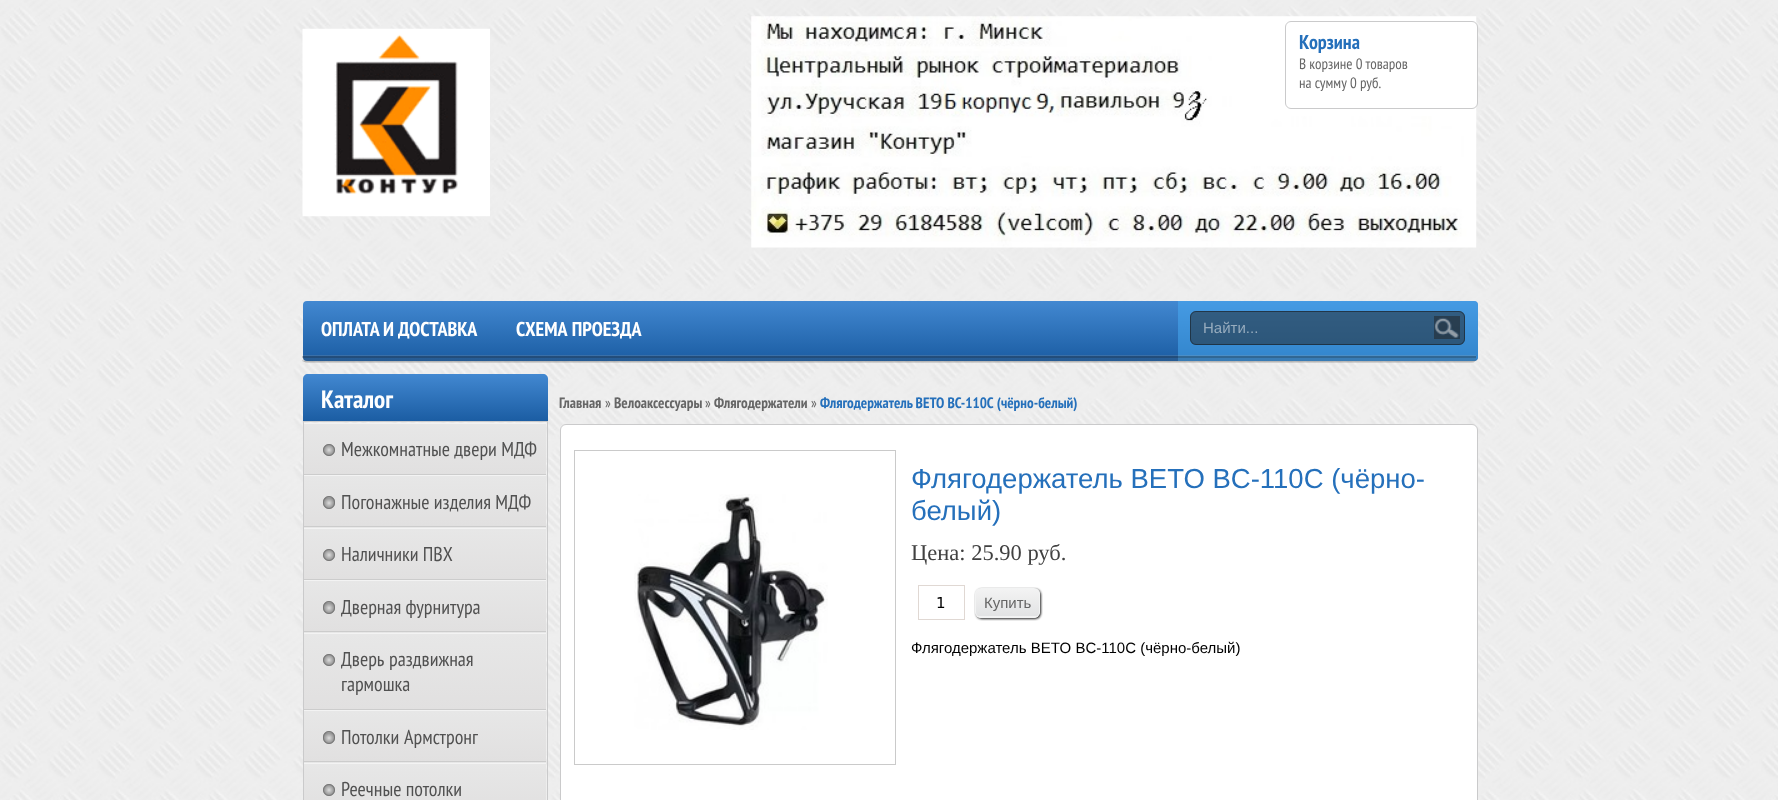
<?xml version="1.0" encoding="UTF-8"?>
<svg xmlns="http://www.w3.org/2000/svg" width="1778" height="800">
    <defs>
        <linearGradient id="g1" gradientUnits="userSpaceOnUse" x1="890" y1="361" x2="890" y2="301"><stop offset="0" stop-color="#1B5DA3"/><stop offset="1" stop-color="#4288D1"/></linearGradient>
        <linearGradient id="g2" gradientUnits="userSpaceOnUse" x1="425" y1="421" x2="425" y2="374"><stop offset="0" stop-color="#1B5DA3"/><stop offset="1" stop-color="#4288D1"/></linearGradient>
        <linearGradient id="g3" gradientUnits="userSpaceOnUse" x1="425" y1="474" x2="425" y2="424"><stop offset="0" stop-color="#E1E0E0"/><stop offset="1" stop-color="#E7E7E7"/></linearGradient>
        <linearGradient id="g4" gradientUnits="userSpaceOnUse" x1="425" y1="526" x2="425" y2="476"><stop offset="0" stop-color="#E1E0E0"/><stop offset="1" stop-color="#E7E7E7"/></linearGradient>
        <linearGradient id="g5" gradientUnits="userSpaceOnUse" x1="425" y1="576" x2="425" y2="526"><stop offset="0" stop-color="#E1E0E0"/><stop offset="1" stop-color="#E7E7E7"/></linearGradient>
        <linearGradient id="g6" gradientUnits="userSpaceOnUse" x1="425" y1="579" x2="425" y2="529"><stop offset="0" stop-color="#E1E0E0"/><stop offset="1" stop-color="#E7E7E7"/></linearGradient>
        <linearGradient id="g7" gradientUnits="userSpaceOnUse" x1="425" y1="631" x2="425" y2="581"><stop offset="0" stop-color="#E1E0E0"/><stop offset="1" stop-color="#E7E7E7"/></linearGradient>
        <linearGradient id="g8" gradientUnits="userSpaceOnUse" x1="425" y1="681" x2="425" y2="631"><stop offset="0" stop-color="#E1E0E0"/><stop offset="1" stop-color="#E7E7E7"/></linearGradient>
        <linearGradient id="g9" gradientUnits="userSpaceOnUse" x1="425" y1="709" x2="425" y2="634"><stop offset="0" stop-color="#E1E0E0"/><stop offset="1" stop-color="#E7E7E7"/></linearGradient>
        <linearGradient id="g10" gradientUnits="userSpaceOnUse" x1="425" y1="761" x2="425" y2="711"><stop offset="0" stop-color="#E1E0E0"/><stop offset="1" stop-color="#E7E7E7"/></linearGradient>
        <linearGradient id="g11" gradientUnits="userSpaceOnUse" x1="425" y1="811" x2="425" y2="761"><stop offset="0" stop-color="#E1E0E0"/><stop offset="1" stop-color="#E7E7E7"/></linearGradient>
        <linearGradient id="g12" gradientUnits="userSpaceOnUse" x1="425" y1="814" x2="425" y2="764"><stop offset="0" stop-color="#E1E0E0"/><stop offset="1" stop-color="#E7E7E7"/></linearGradient>
        <filter id="blur1" x="-50%" y="-200%" width="200%" height="500%"><feGaussianBlur stdDeviation="1"/></filter>
        <clipPath id="clip1"><rect x="975" y="588" width="65" height="30" rx="6"/></clipPath>
        <linearGradient id="g13" gradientUnits="userSpaceOnUse" x1="1008" y1="616" x2="1008" y2="589"><stop offset="0" stop-color="#E2E3E4"/><stop offset="1" stop-color="#F3F3F3"/></linearGradient>
        <linearGradient id="g14" gradientUnits="userSpaceOnUse" x1="1008" y1="644" x2="1008" y2="616"><stop offset="0" stop-color="#E2E3E4"/><stop offset="1" stop-color="#F3F3F3"/></linearGradient>
    </defs>
    <rect width="100%" height="100%" fill="#FFFFFF"/>
    <image x="0" y="0" width="1778" height="800" href="img_01.png"/>
    <image x="302" y="28" width="188" height="189" href="img_02.png"/>
    <image x="751" y="16" width="726" height="232" href="img_03.png"/>
    <rect x="1285.5" y="21.5" width="192" height="87" rx="5.5" fill="#FFFFFF" stroke="#CACACB"/>
    <text x="1299" y="49" font-family="PT Sans Narrow" font-size="20" font-weight="700" fill="#2570BB">Корзина</text>
    <text font-family="PT Sans Narrow" font-size="15" fill="#666666">
        <tspan x="1299" y="69">В корзине 0 товаров</tspan>
        <tspan x="1299" y="88">на сумму</tspan>
    </text>
    <text x="1350" y="88" font-family="PT Sans Narrow" font-size="15" fill="#666666">0 руб.</text>
    <rect x="303" y="301" width="1175" height="60" rx="4" fill="url(#g1)"/>
    <text x="321" y="336" font-family="PT Sans Narrow" font-size="20" font-weight="700" fill="#FFFFFF">ОПЛАТА И ДОСТАВКА</text>
    <text x="516" y="336" word-spacing="1" font-family="PT Sans Narrow" font-size="20" font-weight="700" fill="#FFFFFF">СХЕМА ПРОЕЗДА</text>
    <path d="M 1178 301 H 1474 C 1476 301 1478 303 1478 305 V 357 C 1478 359 1476 361 1474 361 H 1178 Z" fill="#49ADF5" fill-opacity="0.5"/>
    <rect x="303" y="355" width="1173" height="1" fill="#AAAAAA" fill-opacity="0.2"/>
    <path d="M 303 356 H 1476 V 359 C 1476 361 1474 363 1472 363 H 307 C 305 363 303 361 303 359 Z" fill="#555555" fill-opacity="0.2"/>
    <path d="M 1476 359 H 1476 Z M 302 356 V 358 H 1476 V 356 Z" fill="#111111" fill-opacity="0.2" fill-rule="evenodd"/>
    <path d="M 1476 359 C 1476 361 1475 362 1472 362 H 306 C 305 362 303 362 302 361 V 360 C 303 361 305 361 306 361 H 1472 C 1475 361 1476 360 1476 359 Z" fill="#555555" fill-opacity="0.2"/>
    <rect x="1190" y="311" width="275" height="34" rx="6" fill="#222222" fill-opacity="0.5"/>
    <rect x="1190.5" y="311.5" width="274" height="33" rx="5.5" fill="none" stroke="#111111" stroke-opacity="0.5"/>
    <text x="1203" y="333" font-family="Liberation Sans" font-size="15" fill="#97ACBE">Найти...</text>
    <rect x="1434" y="316" width="26" height="23" fill="#222222" fill-opacity="0.5"/>
    <image x="1434" y="317" width="25" height="22" href="img_04.png"/>
    <path d="M 308 374 H 543 C 546 374 548 376 548 379 V 421 H 303 V 379 C 303 376 305 374 308 374 Z" fill="url(#g2)"/>
    <text x="321" y="408" font-family="PT Sans Narrow" font-size="25" font-weight="700" fill="#FFFFFF">Каталог</text>
    <rect x="303.5" y="421.5" width="244" height="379" fill="none" stroke="#CACACB"/>
    <rect x="304" y="424" width="242" height="50" fill="url(#g3)"/>
    <rect x="304" y="423" width="242" height="1" fill="#F3F3F3"/>
    <rect x="304" y="474" width="242" height="1" fill="#CCCCCC"/>
    <image x="323" y="444" width="12" height="12" href="img_05.png"/>
    <circle cx="329" cy="450" r="5.5" fill="none" stroke="#777777"/>
    <text x="341" y="456" font-family="PT Sans Narrow" font-size="20" fill="#515151">Межкомнатные двери МДФ</text>
    <rect x="304" y="476" width="242" height="50" fill="url(#g4)"/>
    <rect x="304" y="527" width="242" height="1" fill="url(#g5)"/>
    <rect x="304" y="475" width="242" height="1" fill="#F3F3F3"/>
    <rect x="304" y="526" width="242" height="1" fill="#CCCCCC"/>
    <image x="323" y="496" width="12" height="13" href="img_06.png"/>
    <rect x="323.5" y="496.5" width="11" height="12" rx="5.5" fill="none" stroke="#777777"/>
    <text x="341" y="509" font-family="PT Sans Narrow" font-size="20" fill="#515151">Погонажные изделия МДФ</text>
    <rect x="304" y="529" width="242" height="50" fill="url(#g6)"/>
    <rect x="304" y="528" width="242" height="1" fill="#F3F3F3"/>
    <rect x="304" y="579" width="242" height="1" fill="#CCCCCC"/>
    <image x="323" y="549" width="12" height="12" href="img_05.png"/>
    <circle cx="329" cy="555" r="5.5" fill="none" stroke="#777777"/>
    <text x="341" y="561" font-family="PT Sans Narrow" font-size="20" fill="#515151">Наличники ПВХ</text>
    <rect x="304" y="581" width="242" height="50" fill="url(#g7)"/>
    <rect x="304" y="632" width="242" height="1" fill="url(#g8)"/>
    <rect x="304" y="580" width="242" height="1" fill="#F3F3F3"/>
    <rect x="304" y="631" width="242" height="1" fill="#CCCCCC"/>
    <image x="323" y="601" width="12" height="13" href="img_06.png"/>
    <rect x="323.5" y="601.5" width="11" height="12" rx="5.5" fill="none" stroke="#777777"/>
    <text x="341" y="614" font-family="PT Sans Narrow" font-size="20" fill="#515151">Дверная фурнитура</text>
    <rect x="304" y="634" width="242" height="75" fill="url(#g9)"/>
    <rect x="304" y="633" width="242" height="1" fill="#F3F3F3"/>
    <rect x="304" y="709" width="242" height="1" fill="#CCCCCC"/>
    <image x="323" y="654" width="12" height="12" href="img_07.png"/>
    <circle cx="329" cy="660" r="5.5" fill="none" stroke="#777777"/>
    <text font-family="PT Sans Narrow" font-size="20" fill="#515151">
        <tspan x="341" y="666" word-spacing="1">Дверь раздвижная</tspan>
        <tspan x="341" y="691">гармошка</tspan>
    </text>
    <rect x="304" y="711" width="242" height="50" fill="url(#g10)"/>
    <rect x="304" y="762" width="242" height="1" fill="url(#g11)"/>
    <rect x="304" y="710" width="242" height="1" fill="#F3F3F3"/>
    <rect x="304" y="761" width="242" height="1" fill="#CCCCCC"/>
    <image x="323" y="731" width="12" height="13" href="img_06.png"/>
    <rect x="323.5" y="731.5" width="11" height="12" rx="5.5" fill="none" stroke="#777777"/>
    <text x="341" y="744" word-spacing="1" font-family="PT Sans Narrow" font-size="20" fill="#515151">Потолки Армстронг</text>
    <rect x="304" y="764" width="242" height="36" fill="url(#g12)"/>
    <rect x="304" y="763" width="242" height="1" fill="#F3F3F3"/>
    <image x="323" y="784" width="12" height="12" href="img_05.png"/>
    <circle cx="329" cy="790" r="5.5" fill="none" stroke="#777777"/>
    <text x="341" y="796" font-family="PT Sans Narrow" font-size="20" fill="#515151">Реечные потолки</text>
    <text x="559" y="408" font-family="PT Sans Narrow" font-size="15" font-weight="700" fill="#666666">Главная</text>
    <text x="605" y="408" font-family="PT Sans Narrow" font-size="15" fill="#666666">»</text>
    <text x="614" y="408" font-family="PT Sans Narrow" font-size="15" font-weight="700" fill="#666666">Велоаксессуары</text>
    <text x="705" y="408" font-family="PT Sans Narrow" font-size="15" fill="#666666">»</text>
    <text x="714" y="408" font-family="PT Sans Narrow" font-size="15" font-weight="700" fill="#666666">Флягодержатели</text>
    <text x="811" y="408" font-family="PT Sans Narrow" font-size="15" fill="#666666">»</text>
    <text x="820" y="408" font-family="PT Sans Narrow" font-size="15" font-weight="700" fill="#2570BB">Флягодержатель BETO BC-110C (чёрно-белый)</text>
    <rect x="560.5" y="424.5" width="917" height="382" rx="5.5" fill="#FFFFFF" stroke="#CACACB"/>
    <rect x="574.5" y="450.5" width="321" height="314" fill="none" stroke="#CACACA"/>
    <image x="634" y="494" width="194" height="236" href="img_08.png"/>
    <text font-family="Liberation Sans" font-size="27.5" fill="#2570BB">
        <tspan x="911" y="488">Флягодержатель BETO BC-110C (чёрно-</tspan>
        <tspan x="911" y="520">белый)</tspan>
    </text>
    <text x="911" y="560" font-family="Liberation Serif" font-size="22.5" fill="#414141">Цена: 25.90 руб.</text>
    <rect x="918.5" y="585.5" width="46" height="34" fill="none" stroke="#E0D8D3"/>
    <text x="936" y="608" font-family="DejaVu Sans" font-size="15" fill="#000000">1</text>
    <rect x="976" y="589" width="65" height="30" rx="6" fill="#222222" filter="url(#blur1)"/>
    <g clip-path="url(#clip1)">
        <rect x="975" y="589" width="65" height="27" fill="url(#g13)"/>
        <rect x="975" y="616" width="65" height="2" fill="url(#g14)"/>
    </g>
    <rect x="975.5" y="588.5" width="64" height="29" rx="5.5" fill="none" stroke="#F2F3F3"/>
    <text x="984" y="608" font-family="Liberation Sans" font-size="15" fill="#666666">Купить</text>
    <text x="911" y="653" font-family="Liberation Sans" font-size="15" fill="#000000">Флягодержатель BETO BC-110C (чёрно-белый)</text>
</svg>
